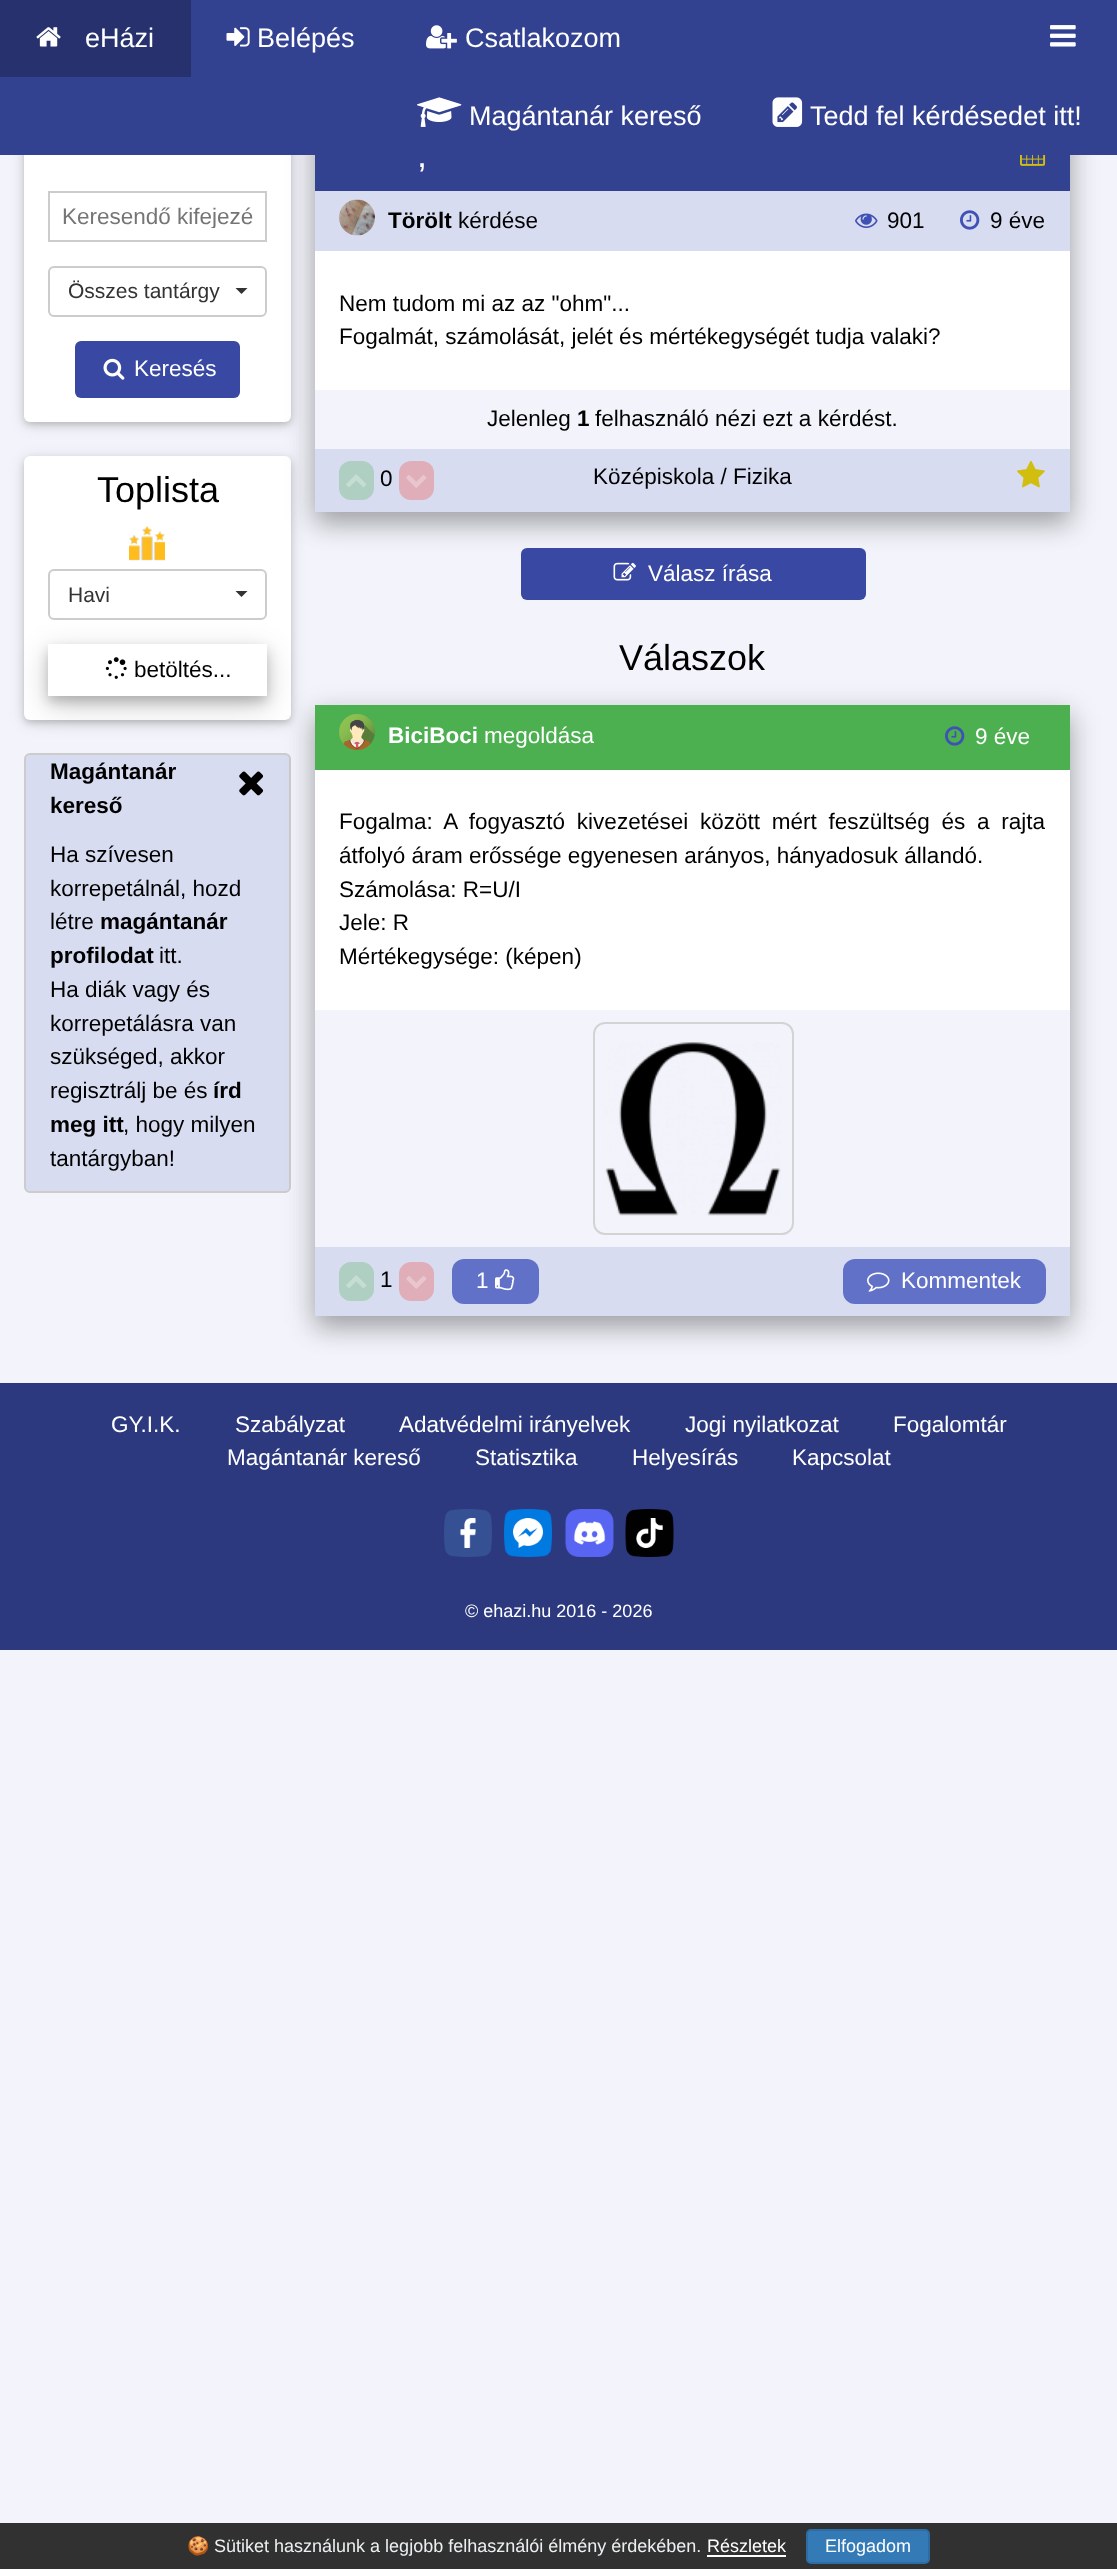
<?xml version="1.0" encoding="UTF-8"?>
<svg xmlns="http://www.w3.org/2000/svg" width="1117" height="2569">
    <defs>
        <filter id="blur1" x="-50%" y="-200%" width="200%" height="500%"><feGaussianBlur stdDeviation="7.5"/></filter>
        <filter id="blur2" x="-50%" y="-200%" width="200%" height="500%"><feGaussianBlur stdDeviation="3"/></filter>
        <filter id="blur3" x="-50%" y="-200%" width="200%" height="500%"><feGaussianBlur stdDeviation="15"/></filter>
        <filter id="blur4" x="-50%" y="-200%" width="200%" height="500%"><feGaussianBlur stdDeviation="12"/></filter>
        <clipPath id="clip1"><rect x="62" y="203" width="192" height="25"/></clipPath>
        <clipPath id="clip2"><path d="M 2 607 H 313 V 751 H 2 Z M 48 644 H 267 V 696 H 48 Z" clip-rule="evenodd"/></clipPath>
        <clipPath id="clip3"><path d="M 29 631 H 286 V 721 H 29 Z M 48 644 H 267 V 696 H 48 Z" clip-rule="evenodd"/></clipPath>
        <filter id="blur5" x="-50%" y="-200%" width="200%" height="500%"><feGaussianBlur stdDeviation="6"/></filter>
    </defs>
    <rect width="100%" height="100%" fill="#F3F4FB"/>
    <rect x="24" y="123" width="267" height="302" rx="6" fill="#000000" fill-opacity="0.12" filter="url(#blur1)"/>
    <rect x="24" y="123" width="267" height="302" rx="6" fill="#000000" fill-opacity="0.16" filter="url(#blur2)"/>
    <rect x="24" y="120" width="267" height="302" rx="6" fill="#FFFFFF"/>
    <rect x="24" y="459" width="267" height="264" rx="6" fill="#000000" fill-opacity="0.12" filter="url(#blur1)"/>
    <rect x="24" y="459" width="267" height="264" rx="6" fill="#000000" fill-opacity="0.16" filter="url(#blur2)"/>
    <rect x="24" y="456" width="267" height="264" rx="6" fill="#FFFFFF"/>
    <rect x="315" y="129" width="755" height="392" fill="#000000" fill-opacity="0.19" filter="url(#blur3)"/>
    <rect x="315" y="132" width="755" height="392" fill="#000000" fill-opacity="0.2" filter="url(#blur4)"/>
    <rect x="0" y="0" width="1117" height="155" fill="#334191"/>
    <rect x="0" y="0" width="191" height="77" fill="#26316D"/>
    <image x="36" y="27" width="25" height="20" href="img_01.png"/>
    <text x="85" y="47" font-family="Liberation Sans" font-size="27" fill="#FFFFFF">eHázi</text>
    <image x="226" y="27" width="24" height="20" href="img_02.png"/>
    <text x="257" y="47" font-family="Liberation Sans" font-size="27" fill="#FFFFFF">Belépés</text>
    <image x="426" y="25" width="31" height="24" href="img_03.png"/>
    <text x="465" y="47" font-family="Liberation Sans" font-size="27" fill="#FFFFFF">Csatlakozom</text>
    <image x="1050" y="25" width="26" height="22" href="img_04.png"/>
    <image x="417" y="97" width="45" height="30" href="img_05.png"/>
    <text x="469" y="125" font-family="Liberation Sans" font-size="27" fill="#FFFFFF">Magántanár kereső</text>
    <image x="772" y="97" width="31" height="30" href="img_06.png"/>
    <text x="810" y="125" font-family="Liberation Sans" font-size="27" fill="#FFFFFF">Tedd fel kérdésedet itt!</text>
    <rect x="49" y="192" width="217" height="49" fill="none" stroke="#CCCCCC" stroke-width="2"/>
    <g clip-path="url(#clip1)">
        <text x="62" y="224" font-family="Liberation Sans" font-size="22.5" fill="#757575">Keresendő kifejezé</text>
    </g>
    <rect x="49" y="267" width="217" height="49" rx="5" fill="none" stroke="#CCCCCC" stroke-width="2"/>
    <text x="68" y="298" font-family="Liberation Sans" font-size="21" fill="#333333">Összes tantárgy</text>
    <path d="M 235.5 288 H 247.5 L 241.5 294 Z" fill="#333333"/>
    <rect x="75" y="341" width="165" height="57" rx="6" fill="#3949A3"/>
    <image x="103" y="358" width="22" height="22" href="img_07.png"/>
    <text x="134" y="376" font-family="Liberation Sans" font-size="22.5" fill="#FFFFFF">Keresés</text>
    <text x="97" y="502" font-family="Liberation Sans" font-size="36" fill="#000000">Toplista</text>
    <image x="129" y="526" width="36" height="35" href="img_08.png"/>
    <g clip-path="url(#clip2)">
        <rect x="48" y="653" width="219" height="52" fill="#000000" fill-opacity="0.19" filter="url(#blur3)"/>
    </g>
    <rect x="49" y="570" width="217" height="49" rx="5" fill="none" stroke="#CCCCCC" stroke-width="2"/>
    <text x="68" y="602" font-family="Liberation Sans" font-size="21" fill="#333333">Havi</text>
    <path d="M 235.5 591 H 247.5 L 241.5 597 Z" fill="#333333"/>
    <g clip-path="url(#clip3)">
        <rect x="48" y="650" width="219" height="52" fill="#000000" fill-opacity="0.2" filter="url(#blur5)"/>
    </g>
    <image x="105" y="657" width="22" height="22" href="img_09.png"/>
    <text x="134" y="677" font-family="Liberation Sans" font-size="22.5" fill="#000000">betöltés...</text>
    <rect x="25" y="754" width="265" height="438" rx="5" fill="#D8DCF1" stroke="#CCCCCC" stroke-width="2"/>
    <text font-family="Liberation Sans" font-size="22.5" font-weight="700" fill="#000000">
        <tspan x="50" y="779">Magántanár</tspan>
        <tspan x="50" y="813">kereső</tspan>
    </text>
    <image x="239" y="771" width="25" height="25" href="img_10.png"/>
    <text font-family="Liberation Sans" font-size="22.5" fill="#000000">
        <tspan x="50" y="862">Ha szívesen</tspan>
        <tspan x="50" y="896">korrepetálnál, hozd</tspan>
        <tspan x="50" y="929">létre</tspan>
    </text>
    <text x="100" y="929" font-family="Liberation Sans" font-size="22.5" font-weight="700" fill="#000000">magántanár</text>
    <text x="50" y="963" font-family="Liberation Sans" font-size="22.5" font-weight="700" fill="#000000">profilodat</text>
    <text x="159" y="963" font-family="Liberation Sans" font-size="22.5" fill="#000000">itt.</text>
    <text font-family="Liberation Sans" font-size="22.5" fill="#000000">
        <tspan x="50" y="997">Ha diák vagy és</tspan>
        <tspan x="50" y="1031">korrepetálásra van</tspan>
        <tspan x="50" y="1064">szükséged, akkor</tspan>
        <tspan x="50" y="1098">regisztrálj be és</tspan>
    </text>
    <text x="213" y="1098" font-family="Liberation Sans" font-size="22.5" font-weight="700" fill="#000000">írd</text>
    <text x="50" y="1132" font-family="Liberation Sans" font-size="22.5" font-weight="700" fill="#000000">meg itt</text>
    <text x="123" y="1132" font-family="Liberation Sans" font-size="22.5" fill="#000000">, hogy milyen</text>
    <text x="50" y="1166" font-family="Liberation Sans" font-size="22.5" fill="#000000">tantárgyban!</text>
    <rect x="315" y="155" width="755" height="36" fill="#334191"/>
    <image x="1020" y="155" width="26" height="11" href="img_11.png"/>
    <text x="417" y="167" font-family="Liberation Sans" font-size="36" fill="#FFFFFF">,</text>
    <rect x="315" y="191" width="755" height="60" fill="#D8DCF1"/>
    <image x="339" y="199" width="36" height="37" href="img_12.png"/>
    <text x="388" y="228" font-family="Liberation Sans" font-size="22.5" font-weight="700" fill="#000000">Törölt</text>
    <text x="458" y="228" font-family="Liberation Sans" font-size="22.5" fill="#000000">kérdése</text>
    <image x="855" y="213" width="23" height="15" href="img_13.png"/>
    <text x="887" y="228" font-family="Liberation Sans" font-size="22.5" fill="#000000">901</text>
    <image x="960" y="210" width="20" height="20" href="img_14.png"/>
    <text x="990" y="228" font-family="Liberation Sans" font-size="22.5" fill="#000000">9 éve</text>
    <rect x="315" y="251" width="755" height="139" fill="#FFFFFF"/>
    <text font-family="Liberation Sans" font-size="22.5" fill="#000000">
        <tspan x="339" y="311">Nem tudom mi az az "ohm"...</tspan>
        <tspan x="339" y="344">Fogalmát, számolását, jelét és mértékegységét tudja valaki?</tspan>
    </text>
    <rect x="315" y="390" width="755" height="59" fill="#F3F4FB"/>
    <text x="487" y="426" font-family="Liberation Sans" font-size="22.5" fill="#000000">Jelenleg</text>
    <text x="577" y="426" font-family="Liberation Sans" font-size="22.5" font-weight="700" fill="#000000">1</text>
    <text x="595" y="426" font-family="Liberation Sans" font-size="22.5" fill="#000000">felhasználó nézi ezt a kérdést.</text>
    <rect x="315" y="449" width="755" height="63" fill="#D8DCF1"/>
    <rect x="339" y="461" width="35" height="39" rx="12" fill="#AECFC1"/>
    <image x="346" y="474" width="21" height="13" href="img_15.png"/>
    <text x="380" y="486" font-family="Liberation Sans" font-size="22.5" fill="#000000">0</text>
    <rect x="399" y="461" width="35" height="39" rx="12" fill="#E0AEB9"/>
    <image x="406" y="475" width="21" height="13" href="img_16.png"/>
    <text x="593" y="484" font-family="Liberation Sans" font-size="22.5" fill="#000000">Középiskola / Fizika</text>
    <image x="1017" y="460" width="28" height="28" href="img_17.png"/>
    <rect x="521" y="548" width="345" height="52" rx="6" fill="#3949A3"/>
    <image x="613" y="562" width="23" height="19" href="img_18.png"/>
    <text x="648" y="581" font-family="Liberation Sans" font-size="22.5" fill="#FFFFFF">Válasz írása</text>
    <rect x="315" y="714" width="755" height="611" fill="#000000" fill-opacity="0.19" filter="url(#blur3)"/>
    <text x="619" y="670" font-family="Liberation Sans" font-size="36" fill="#000000">Válaszok</text>
    <rect x="315" y="717" width="755" height="611" fill="#000000" fill-opacity="0.2" filter="url(#blur4)"/>
    <rect x="315" y="705" width="755" height="65" fill="#4CAF50"/>
    <image x="339" y="714" width="36" height="36" href="img_19.png"/>
    <text x="388" y="743" font-family="Liberation Sans" font-size="22.5" font-weight="700" fill="#FFFFFF">BiciBoci</text>
    <text x="484" y="743" font-family="Liberation Sans" font-size="22.5" fill="#FFFFFF">megoldása</text>
    <image x="945" y="726" width="20" height="20" href="img_20.png"/>
    <text x="975" y="744" font-family="Liberation Sans" font-size="22.5" fill="#FFFFFF">9 éve</text>
    <rect x="315" y="770" width="755" height="240" fill="#FFFFFF"/>
    <text font-family="Liberation Sans" font-size="22.5" fill="#000000">
        <tspan x="339" y="829" word-spacing="5.5">Fogalma: A fogyasztó kivezetései között mért feszültség és a rajta</tspan>
        <tspan x="339" y="863">átfolyó áram erőssége egyenesen arányos, hányadosuk állandó.</tspan>
        <tspan x="339" y="897">Számolása: R=U/I</tspan>
        <tspan x="339" y="930">Jele: R</tspan>
        <tspan x="339" y="964">Mértékegysége: (képen)</tspan>
    </text>
    <rect x="315" y="1010" width="755" height="237" fill="#F3F4FB"/>
    <rect x="594" y="1023" width="199" height="211" rx="11" fill="none" stroke="#D3D3D3" stroke-width="2"/>
    <image x="605" y="1042" width="176" height="174" href="img_21.png"/>
    <rect x="315" y="1247" width="755" height="69" fill="#D8DCF1"/>
    <rect x="339" y="1262" width="35" height="39" rx="12" fill="#AECFC1"/>
    <image x="346" y="1275" width="21" height="13" href="img_15.png"/>
    <text x="380" y="1287" font-family="Liberation Sans" font-size="22.5" fill="#000000">1</text>
    <rect x="399" y="1262" width="35" height="39" rx="12" fill="#E0AEB9"/>
    <image x="406" y="1276" width="21" height="13" href="img_16.png"/>
    <rect x="452" y="1259" width="87" height="45" rx="12" fill="#6271C8"/>
    <text x="476" y="1288" font-family="Liberation Sans" font-size="22.5" fill="#FFFFFF">1</text>
    <image x="495" y="1269" width="20" height="22" href="img_22.png"/>
    <rect x="843" y="1259" width="203" height="45" rx="12" fill="#6271C8"/>
    <image x="867" y="1272" width="23" height="20" href="img_23.png"/>
    <text x="901" y="1288" font-family="Liberation Sans" font-size="22.5" fill="#FFFFFF">Kommentek</text>
    <rect x="0" y="1383" width="1117" height="267" fill="#2D397F"/>
    <text x="111" y="1432" font-family="Liberation Sans" font-size="22.5" fill="#FFFFFF">GY.I.K.</text>
    <text x="235" y="1432" font-family="Liberation Sans" font-size="22.5" fill="#FFFFFF">Szabályzat</text>
    <text x="399" y="1432" font-family="Liberation Sans" font-size="22.5" fill="#FFFFFF">Adatvédelmi irányelvek</text>
    <text x="685" y="1432" font-family="Liberation Sans" font-size="22.5" fill="#FFFFFF">Jogi nyilatkozat</text>
    <text x="893" y="1432" font-family="Liberation Sans" font-size="22.5" fill="#FFFFFF">Fogalomtár</text>
    <text x="227" y="1465" font-family="Liberation Sans" font-size="22.5" fill="#FFFFFF">Magántanár kereső</text>
    <text x="475" y="1465" font-family="Liberation Sans" font-size="22.5" fill="#FFFFFF">Statisztika</text>
    <text x="632" y="1465" font-family="Liberation Sans" font-size="22.5" fill="#FFFFFF">Helyesírás</text>
    <text x="792" y="1465" font-family="Liberation Sans" font-size="22.5" fill="#FFFFFF">Kapcsolat</text>
    <image x="444" y="1509" width="48" height="48" href="img_24.png"/>
    <image x="504" y="1509" width="48" height="48" href="img_25.png"/>
    <image x="565" y="1509" width="49" height="48" href="img_26.png"/>
    <image x="625" y="1509" width="49" height="48" href="img_27.png"/>
    <text x="465" y="1617" font-family="Liberation Sans" font-size="18" fill="#FFFFFF">© ehazi.hu 2016 - 2026</text>
    <rect x="0" y="2523" width="1117" height="46" fill="#313132"/>
    <text x="187" y="2552" font-family="Noto Color Emoji" font-size="18" fill="#ECF0F1">🍪</text>
    <text x="214" y="2552" font-family="Liberation Sans" font-size="18" fill="#ECF0F1">Sütiket használunk a legjobb felhasználói élmény érdekében.</text>
    <text x="707" y="2552" font-family="Liberation Sans" font-size="18" fill="#FFFFFF">Részletek</text>
    <rect x="707" y="2555" width="79" height="2" fill="#FFFFFF"/>
    <rect x="807" y="2530" width="122" height="33" rx="4" fill="#337AB7" stroke="#2E6DA4" stroke-width="2"/>
    <text x="825" y="2552" font-family="Liberation Sans" font-size="18" fill="#FFFFFF">Elfogadom</text>
</svg>
